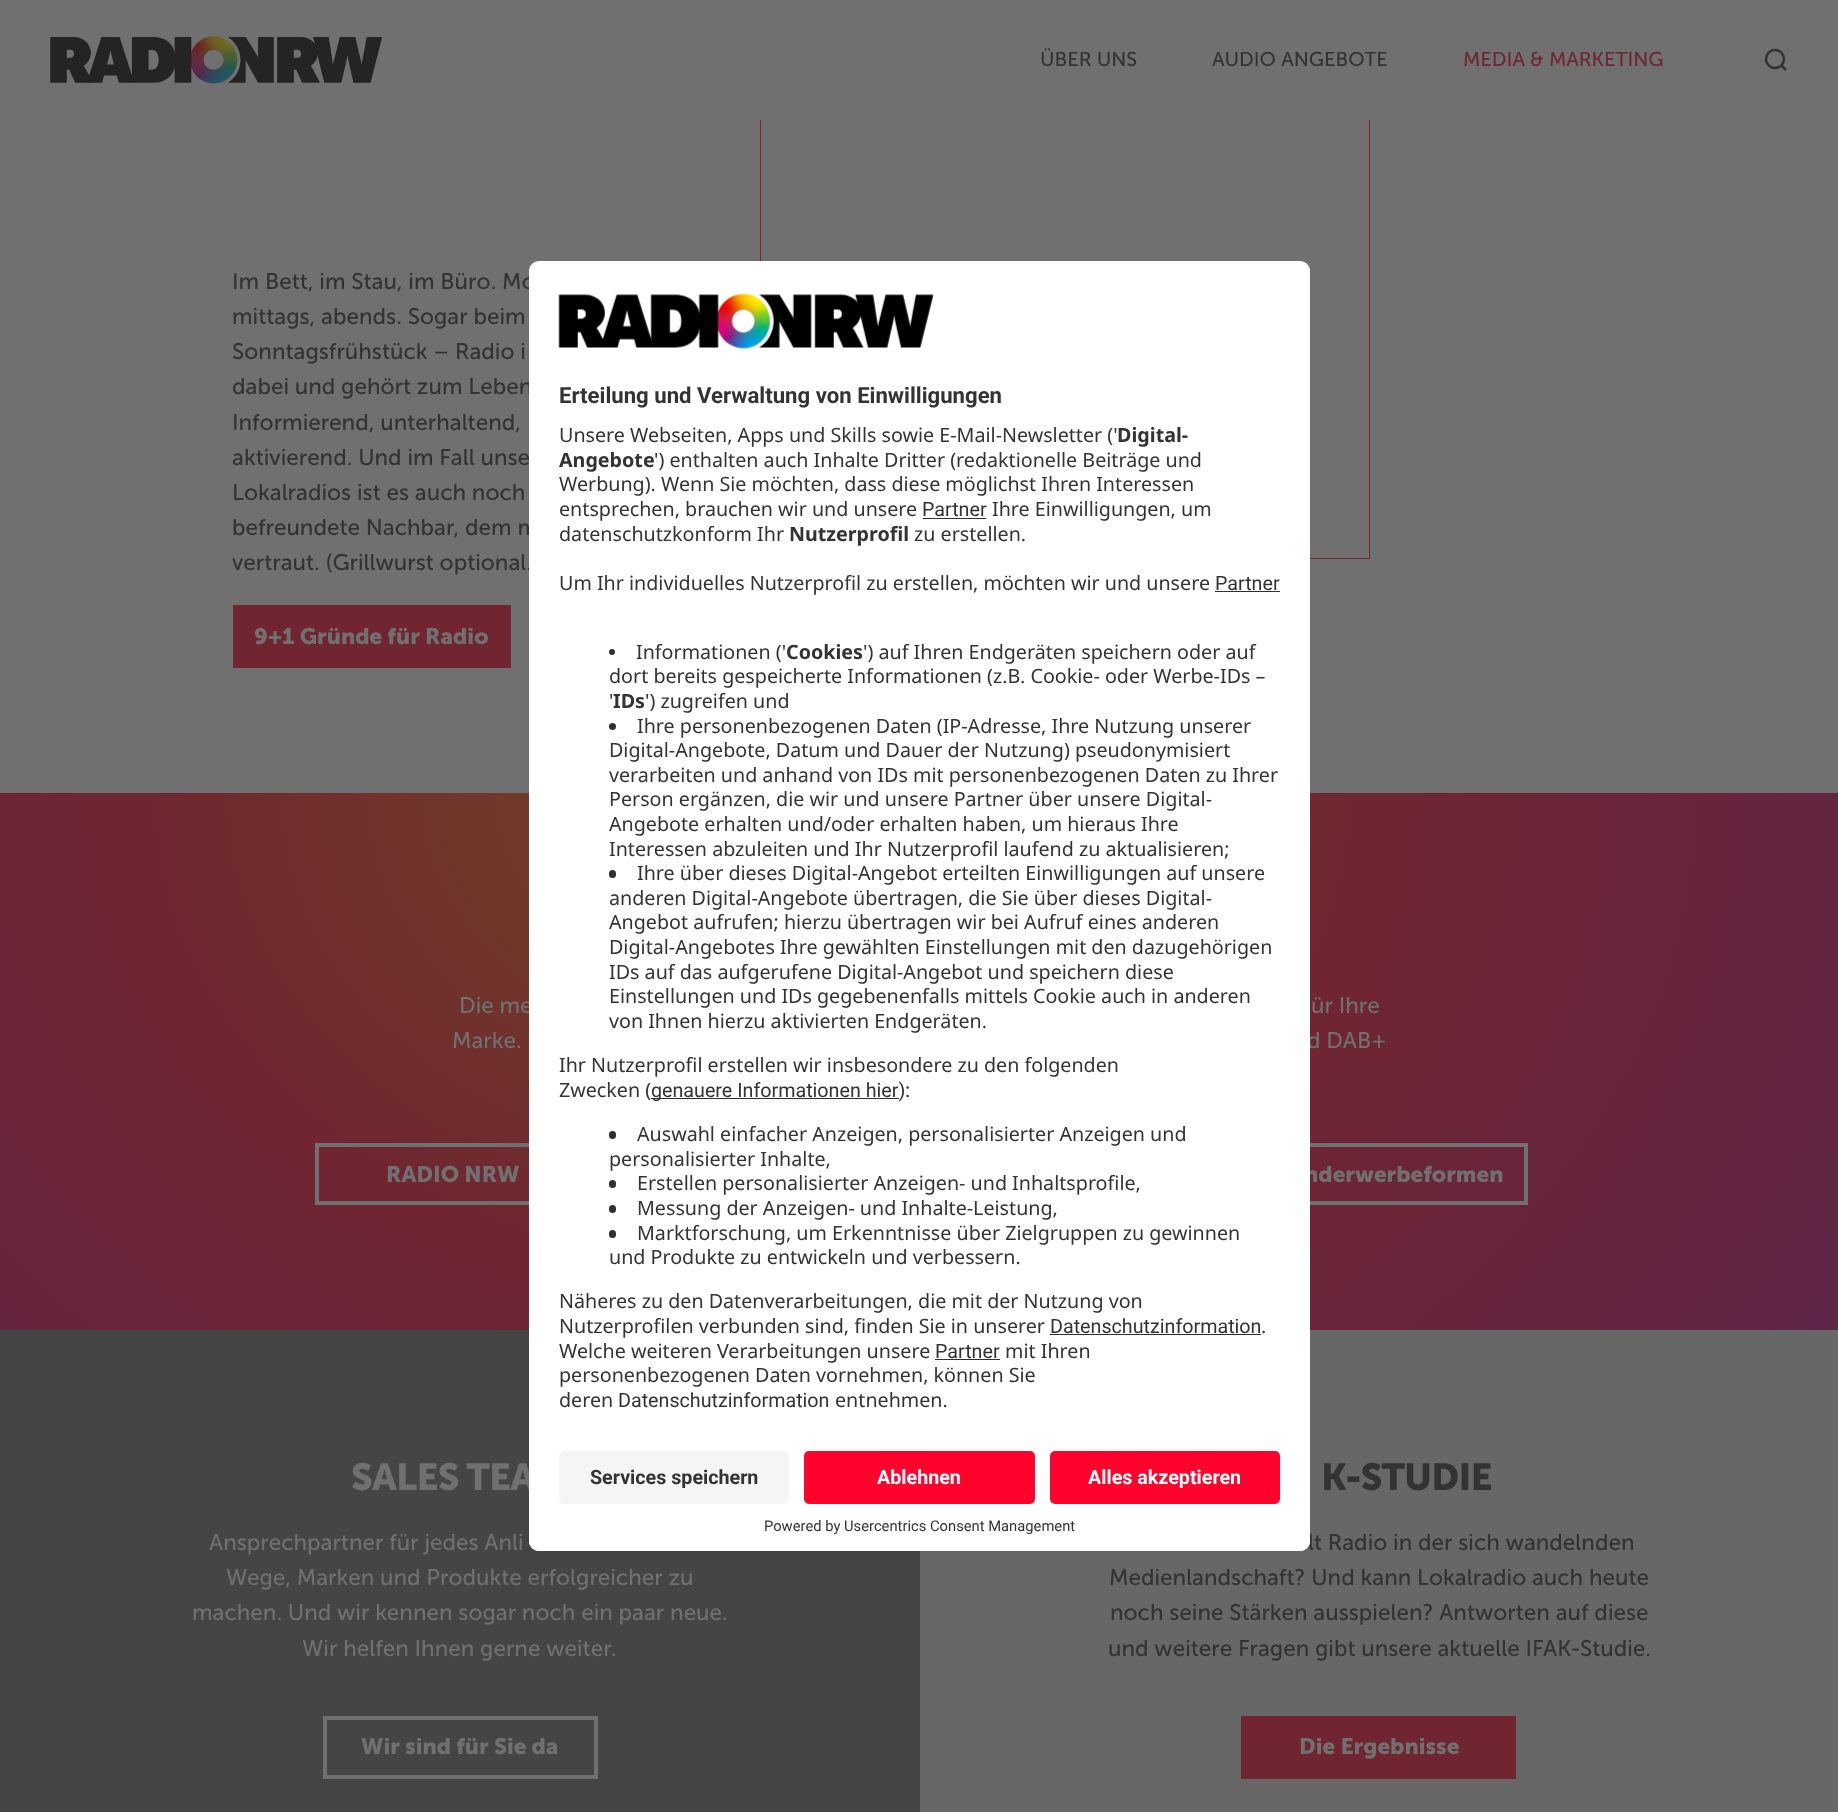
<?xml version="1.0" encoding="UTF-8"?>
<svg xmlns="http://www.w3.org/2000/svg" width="1838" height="1812">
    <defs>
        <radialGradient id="g1" gradientUnits="userSpaceOnUse" cx="0" cy="0" r="1" gradientTransform="matrix(1304 0 0 1030 752 793)"><stop offset="0" stop-color="#704624"/><stop offset="0.48" stop-color="#702531"/><stop offset="1" stop-color="#5E2549"/></radialGradient>
        <clipPath id="clip1"><rect x="529" y="261" width="781" height="1290" rx="10"/></clipPath>
        <clipPath id="clip2"><path d="M 539 261 H 1300 C 1305.5 261 1310 265.5 1310 271 V 1441 H 529 V 271 C 529 265.5 533.5 261 539 261 Z"/></clipPath>
    </defs>
    <rect width="100%" height="100%" fill="#707070"/>
    <rect x="760.5" y="98.5" width="609" height="460" fill="none" stroke="#702531"/>
    <rect x="760" y="98" width="610" height="22" fill="#707070"/>
    <image x="50" y="36" width="332" height="48" href="img_01.png"/>
    <text x="1040" y="66" font-family="'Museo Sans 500'" font-size="20" fill="#333333">ÜBER UNS</text>
    <text x="1212" y="66" font-family="'Museo Sans 500'" font-size="20" fill="#333333">AUDIO ANGEBOTE</text>
    <text x="1463" y="66" font-family="'Museo Sans 500'" font-size="20" fill="#702531">MEDIA &amp; MARKETING</text>
    <circle cx="1775" cy="59" r="9" fill="none" stroke="#333333" stroke-width="2.5"/>
    <path d="M 1781 65 L 1786 70 Z" fill="none" stroke="#333333" stroke-width="2.5"/>
    <text font-family="'Museo Sans 500'" font-size="22.5" fill="#333333">
        <tspan x="232" y="289">Im Bett, im Stau, im Büro. Mo</tspan>
        <tspan x="232" y="324">mittags, abends. Sogar beim</tspan>
        <tspan x="232" y="359">Sonntagsfrühstück – Radio i</tspan>
        <tspan x="232" y="394">dabei und gehört zum Leben</tspan>
        <tspan x="232" y="430">Informierend, unterhaltend,</tspan>
        <tspan x="232" y="465">aktivierend. Und im Fall unse</tspan>
        <tspan x="232" y="500">Lokalradios ist es auch noch</tspan>
        <tspan x="232" y="535">befreundete Nachbar, dem m</tspan>
        <tspan x="232" y="570">vertraut. (Grillwurst optional.</tspan>
    </text>
    <rect x="233" y="605" width="278" height="63" fill="#702531"/>
    <text x="254" y="644" font-family="'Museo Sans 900'" font-size="22.5" font-weight="700" fill="#707070">9+1 Gründe für Radio</text>
    <rect x="0" y="793" width="1838" height="537" fill="url(#g1)"/>
    <text x="459" y="1013" font-family="'Museo Sans 500'" font-size="22.5" fill="#707070">Die me</text>
    <text x="1311" y="1013" font-family="'Museo Sans 500'" font-size="22.5" fill="#707070">ür Ihre</text>
    <text x="452" y="1048" font-family="'Museo Sans 500'" font-size="22.5" fill="#707070">Marke.</text>
    <text x="1307" y="1048" font-family="'Museo Sans 500'" font-size="22.5" fill="#707070">d DAB+</text>
    <rect x="317" y="1145" width="271" height="58" fill="none" stroke="#707070" stroke-width="4"/>
    <text x="386" y="1182" font-family="'Museo Sans 900'" font-size="22.5" font-weight="700" fill="#707070">RADIO NRW</text>
    <rect x="1255" y="1145" width="271" height="58" fill="none" stroke="#707070" stroke-width="4"/>
    <text x="1304" y="1182" font-family="'Museo Sans 900'" font-size="22.5" font-weight="700" fill="#707070">nderwerbeformen</text>
    <rect x="0" y="1330" width="920" height="482" fill="#454545"/>
    <text x="351" y="1490" font-family="'Museo Sans 900'" font-size="37.5" font-weight="700" letter-spacing="-0.75" fill="#707070">SALES TEA</text>
    <text x="209" y="1550" font-family="'Museo Sans 500'" font-size="22.5" fill="#707070">Ansprechpartner für jedes Anli</text>
    <text x="226" y="1585" font-family="'Museo Sans 500'" font-size="22.5" fill="#707070">Wege, Marken und Produkte erfolgreicher zu</text>
    <text x="192" y="1620" font-family="'Museo Sans 500'" font-size="22.5" fill="#707070">machen. Und wir kennen sogar noch ein paar neue.</text>
    <text x="302" y="1656" font-family="'Museo Sans 500'" font-size="22.5" fill="#707070">Wir helfen Ihnen gerne weiter.</text>
    <rect x="325" y="1718" width="271" height="59" fill="none" stroke="#707070" stroke-width="4"/>
    <text x="361" y="1754" font-family="'Museo Sans 900'" font-size="22.5" font-weight="700" fill="#707070">Wir sind für Sie da</text>
    <rect x="920" y="1330" width="918" height="482" fill="#676767"/>
    <text x="1321" y="1490" font-family="'Museo Sans 900'" font-size="37.5" font-weight="700" letter-spacing="-0.75" fill="#333333">K-STUDIE</text>
    <text x="1308" y="1550" font-family="'Museo Sans 500'" font-size="22.5" fill="#333333">lt Radio in der sich wandelnden</text>
    <text x="1109" y="1585" font-family="'Museo Sans 500'" font-size="22.5" fill="#333333">Medienlandschaft? Und kann Lokalradio auch heute</text>
    <text x="1110" y="1620" font-family="'Museo Sans 500'" font-size="22.5" fill="#333333">noch seine Stärken ausspielen? Antworten auf diese</text>
    <text x="1108" y="1656" font-family="'Museo Sans 500'" font-size="22.5" fill="#333333">und weitere Fragen gibt unsere aktuelle IFAK-Studie.</text>
    <rect x="1241" y="1716" width="275" height="63" fill="#702531"/>
    <text x="1299" y="1754" font-family="'Museo Sans 900'" font-size="22.5" font-weight="700" fill="#707070">Die Ergebnisse</text>
    <rect x="529" y="261" width="781" height="1290" rx="10" fill="#FFFFFF"/>
    <g clip-path="url(#clip1)">
        <g clip-path="url(#clip2)">
            <rect x="529" y="263" width="781" height="1178" fill="#FFFFFF"/>
        </g>
    </g>
    <image x="558" y="293" width="376" height="56" href="img_02.png"/>
    <text x="559" y="403" font-family="Roboto" font-size="22.15" font-weight="700" fill="#333333">Erteilung und Verwaltung von Einwilligungen</text>
    <text x="559" y="442" font-family="Noto Sans" font-size="19.7" fill="#333333">Unsere Webseiten, Apps und Skills sowie E-Mail-Newsletter ('</text>
    <text x="1117" y="442" font-family="Noto Sans" font-size="19.7" font-weight="700" fill="#333333">Digital-</text>
    <text x="559" y="467" font-family="Noto Sans" font-size="19.7" font-weight="700" fill="#333333">Angebote</text>
    <text x="654" y="467" font-family="Noto Sans" font-size="19.7" fill="#333333">') enthalten auch Inhalte Dritter (redaktionelle Beiträge und</text>
    <text font-family="Noto Sans" font-size="19.7" fill="#333333">
        <tspan x="559" y="491">Werbung). Wenn Sie möchten, dass diese möglichst Ihren Interessen</tspan>
        <tspan x="559" y="516">entsprechen, brauchen wir und unsere</tspan>
    </text>
    <text x="922" y="516" font-family="Roboto" font-size="19.7" fill="#333333">Partner</text>
    <rect x="923" y="518" width="63" height="1" fill="#303030"/>
    <text x="992" y="516" font-family="Noto Sans" font-size="19.7" fill="#333333">Ihre Einwilligungen, um</text>
    <text x="559" y="541" font-family="Noto Sans" font-size="19.7" fill="#333333">datenschutzkonform Ihr</text>
    <text x="789" y="541" font-family="Noto Sans" font-size="19.7" font-weight="700" fill="#333333">Nutzerprofil</text>
    <text x="914" y="541" font-family="Noto Sans" font-size="19.7" fill="#333333">zu erstellen.</text>
    <text x="559" y="590" font-family="Noto Sans" font-size="19.7" fill="#333333">Um Ihr individuelles Nutzerprofil zu erstellen, möchten wir und unsere</text>
    <text x="1215" y="590" font-family="Roboto" font-size="19.7" fill="#333333">Partner</text>
    <rect x="1215" y="591" width="65" height="1" fill="#303030"/>
    <circle cx="612" cy="652" r="3" fill="#303030"/>
    <text x="636" y="659" font-family="Noto Sans" font-size="19.7" fill="#333333">Informationen ('</text>
    <text x="786" y="659" font-family="Noto Sans" font-size="19.7" font-weight="700" fill="#333333">Cookies</text>
    <text x="863" y="659" font-family="Noto Sans" font-size="19.7" fill="#333333">') auf Ihren Endgeräten speichern oder auf</text>
    <text font-family="Noto Sans" font-size="19.7" fill="#333333">
        <tspan x="609" y="683">dort bereits gespeicherte Informationen (z.B. Cookie- oder Werbe-IDs –</tspan>
        <tspan x="609" y="708">'</tspan>
    </text>
    <text x="613" y="708" font-family="Noto Sans" font-size="19.7" font-weight="700" fill="#333333">IDs</text>
    <text x="645" y="708" font-family="Noto Sans" font-size="19.7" fill="#333333">') zugreifen und</text>
    <circle cx="612.5" cy="726.5" r="3.5" fill="#303030"/>
    <text x="637" y="733" font-family="Noto Sans" font-size="19.7" fill="#333333">Ihre personenbezogenen Daten (IP-Adresse, Ihre Nutzung unserer</text>
    <text font-family="Noto Sans" font-size="19.7" fill="#333333">
        <tspan x="609" y="757">Digital-Angebote, Datum und Dauer der Nutzung) pseudonymisiert</tspan>
        <tspan x="609" y="782">verarbeiten und anhand von IDs mit personenbezogenen Daten zu Ihrer</tspan>
        <tspan x="609" y="806">Person ergänzen, die wir und unsere Partner über unsere Digital-</tspan>
        <tspan x="609" y="831">Angebote erhalten und/oder erhalten haben, um hieraus Ihre</tspan>
        <tspan x="609" y="856">Interessen abzuleiten und Ihr Nutzerprofil laufend zu aktualisieren;</tspan>
    </text>
    <rect x="609" y="870" width="7" height="8" rx="3.5" fill="#303030"/>
    <text x="637" y="880" font-family="Noto Sans" font-size="19.7" fill="#333333">Ihre über dieses Digital-Angebot erteilten Einwilligungen auf unsere</text>
    <text font-family="Noto Sans" font-size="19.7" fill="#333333">
        <tspan x="609" y="905">anderen Digital-Angebote übertragen, die Sie über dieses Digital-</tspan>
        <tspan x="609" y="929">Angebot aufrufen; hierzu übertragen wir bei Aufruf eines anderen</tspan>
        <tspan x="609" y="954">Digital-Angebotes Ihre gewählten Einstellungen mit den dazugehörigen</tspan>
        <tspan x="609" y="979">IDs auf das aufgerufene Digital-Angebot und speichern diese</tspan>
        <tspan x="609" y="1003">Einstellungen und IDs gegebenenfalls mittels Cookie auch in anderen</tspan>
        <tspan x="609" y="1028">von Ihnen hierzu aktivierten Endgeräten.</tspan>
    </text>
    <text font-family="Noto Sans" font-size="19.7" fill="#333333">
        <tspan x="559" y="1072">Ihr Nutzerprofil erstellen wir insbesondere zu den folgenden</tspan>
        <tspan x="559" y="1097">Zwecken (</tspan>
    </text>
    <rect x="651" y="1098" width="248" height="1" fill="#303030"/>
    <text x="651" y="1097" font-family="Roboto" font-size="19.7" fill="#333333">genauere Informationen hier)</text>
    <text x="905" y="1097" font-family="Noto Sans" font-size="19.7" fill="#333333">:</text>
    <rect x="609" y="1131" width="7" height="8" rx="3.5" fill="#303030"/>
    <text x="637" y="1141" font-family="Noto Sans" font-size="19.7" fill="#333333">Auswahl einfacher Anzeigen, personalisierter Anzeigen und</text>
    <text x="609" y="1166" font-family="Noto Sans" font-size="19.7" fill="#333333">personalisierter Inhalte,</text>
    <rect x="609" y="1180" width="7" height="8" rx="3.5" fill="#303030"/>
    <text x="637" y="1190" font-family="Noto Sans" font-size="19.7" fill="#333333">Erstellen personalisierter Anzeigen- und Inhaltsprofile,</text>
    <rect x="609" y="1205" width="7" height="8" rx="3.5" fill="#303030"/>
    <text x="637" y="1215" font-family="Noto Sans" font-size="19.7" fill="#333333">Messung der Anzeigen- und Inhalte-Leistung,</text>
    <rect x="609" y="1230" width="7" height="8" rx="3.5" fill="#303030"/>
    <text x="637" y="1240" font-family="Noto Sans" font-size="19.7" fill="#333333">Marktforschung, um Erkenntnisse über Zielgruppen zu gewinnen</text>
    <text x="609" y="1264" font-family="Noto Sans" font-size="19.7" fill="#333333">und Produkte zu entwickeln und verbessern.</text>
    <text font-family="Noto Sans" font-size="19.7" fill="#333333">
        <tspan x="559" y="1308">Näheres zu den Datenverarbeitungen, die mit der Nutzung von</tspan>
        <tspan x="559" y="1333">Nutzerprofilen verbunden sind, finden Sie in unserer</tspan>
    </text>
    <text x="1050" y="1333" font-family="Roboto" font-size="19.7" fill="#333333">Datenschutzinformation</text>
    <rect x="1050" y="1334" width="211" height="1" fill="#303030"/>
    <text x="1261" y="1333" font-family="Noto Sans" font-size="19.7" fill="#333333">.</text>
    <text x="559" y="1358" font-family="Noto Sans" font-size="19.7" fill="#333333">Welche weiteren Verarbeitungen unsere</text>
    <text x="935" y="1358" font-family="Roboto" font-size="19.7" fill="#333333">Partner</text>
    <rect x="935" y="1359" width="65" height="1" fill="#303030"/>
    <text x="1005" y="1358" font-family="Noto Sans" font-size="19.7" fill="#333333">mit Ihren</text>
    <text font-family="Noto Sans" font-size="19.7" fill="#333333">
        <tspan x="559" y="1382">personenbezogenen Daten vornehmen, können Sie</tspan>
        <tspan x="559" y="1407">deren</tspan>
    </text>
    <text x="618" y="1407" font-family="Roboto" font-size="19.7" fill="#333333">Datenschutzinformation</text>
    <text x="835" y="1407" font-family="Noto Sans" font-size="19.7" fill="#333333">entnehmen.</text>
    <path d="M 529 1441 H 1310 V 1541 C 1310 1546.5 1305.5 1551 1300 1551 H 539 C 533.5 1551 529 1546.5 529 1541 Z" fill="#FFFFFF"/>
    <rect x="559" y="1451" width="230" height="53" rx="5" fill="#F5F5F5"/>
    <text x="590" y="1484" font-family="Roboto" font-size="19.7" font-weight="700" fill="#333333">Services speichern</text>
    <rect x="804" y="1451" width="231" height="53" rx="5" fill="#FF032C"/>
    <text x="877" y="1484" font-family="Roboto" font-size="19.7" font-weight="700" fill="#FFFFFF">Ablehnen</text>
    <rect x="1050" y="1451" width="230" height="53" rx="5" fill="#FF032C"/>
    <text x="1088" y="1484" font-family="Roboto" font-size="19.7" font-weight="700" fill="#FFFFFF">Alles akzeptieren</text>
    <text x="764" y="1531" font-family="Roboto" font-size="14.75" fill="#333333">Powered by Usercentrics Consent Management</text>
</svg>
